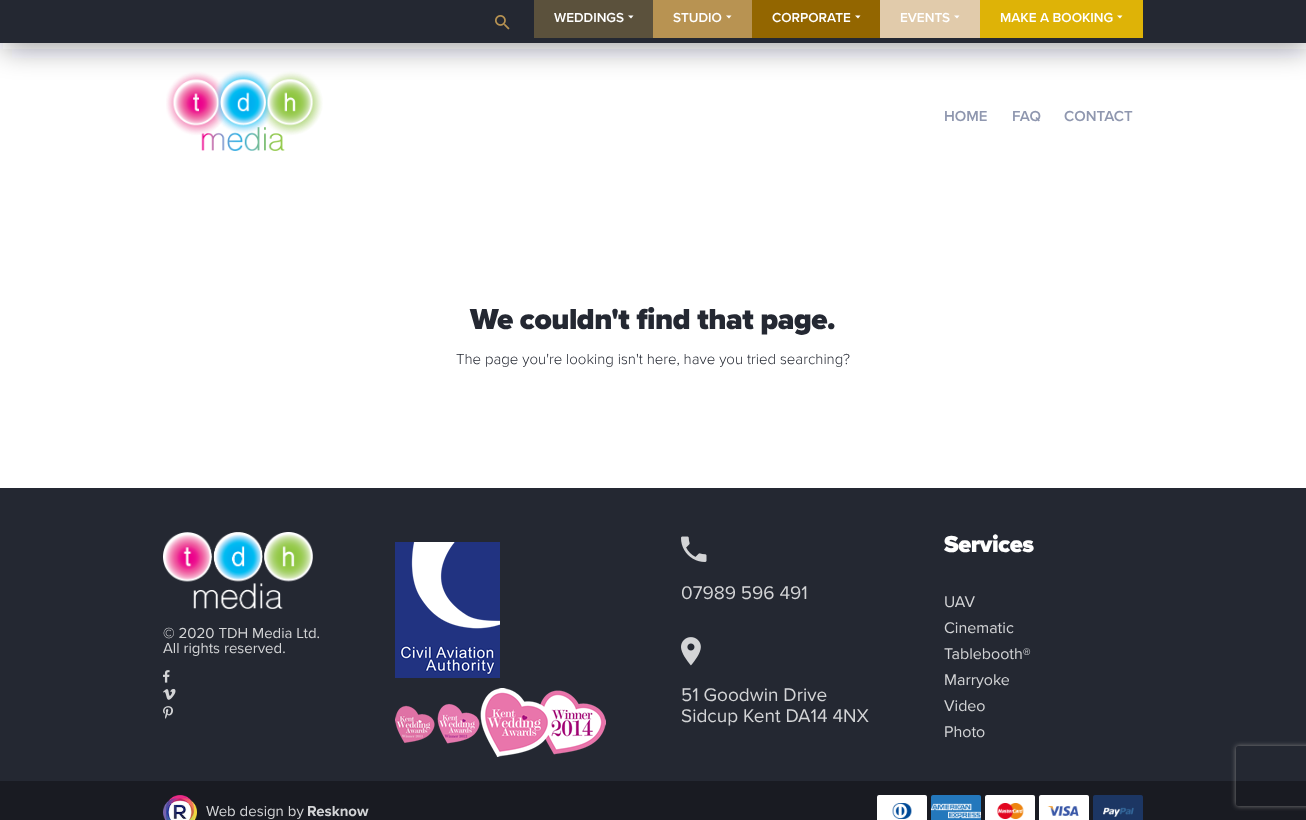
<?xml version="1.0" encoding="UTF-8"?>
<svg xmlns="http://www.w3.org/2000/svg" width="1306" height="820">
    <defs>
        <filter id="blur1" x="-50%" y="-200%" width="200%" height="500%"><feGaussianBlur stdDeviation="14"/></filter>
        <clipPath id="clip1"><path d="M 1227 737 H 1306 V 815 H 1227 Z M 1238 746 H 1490 C 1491 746 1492 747 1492 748 V 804 C 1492 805 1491 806 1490 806 H 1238 C 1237 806 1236 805 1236 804 V 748 C 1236 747 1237 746 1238 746 Z" clip-rule="evenodd"/></clipPath>
        <filter id="blur2" x="-50%" y="-200%" width="200%" height="500%"><feGaussianBlur stdDeviation="2.5"/></filter>
    </defs>
    <rect width="100%" height="100%" fill="#FFFFFF"/>
    <image x="166" y="70" width="157" height="81" href="img_02.png"/>
    <rect x="3" y="6" width="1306" height="43" fill="#191B22" fill-opacity="0.4" filter="url(#blur1)"/>
    <rect x="0" y="0" width="1306" height="43" fill="#242832"/>
    <image x="495" y="15" width="15" height="15" href="img_01.png"/>
    <rect x="534" y="0" width="119" height="38" fill="#5B513C"/>
    <text x="554" y="22" font-family="Proxima Nova" font-size="13.5" font-weight="600" fill="#FFFFFF">WEDDINGS</text>
    <path d="M 628 15.5 H 633.5 L 631 18.5 Z" fill="#FFFFFF"/>
    <rect x="653" y="0" width="99" height="38" fill="#B89352"/>
    <text x="673" y="22" font-family="Proxima Nova" font-size="13.5" font-weight="600" fill="#FFFFFF">STUDIO</text>
    <path d="M 726 15.5 H 731.5 L 729 18.5 Z" fill="#FFFFFF"/>
    <rect x="752" y="0" width="128" height="38" fill="#936600"/>
    <text x="772" y="22" font-family="Proxima Nova" font-size="13.5" font-weight="600" fill="#FFFFFF">CORPORATE</text>
    <path d="M 855 15.5 H 860.5 L 858 18.5 Z" fill="#FFFFFF"/>
    <rect x="880" y="0" width="100" height="38" fill="#E1CBAB"/>
    <text x="900" y="22" font-family="Proxima Nova" font-size="13.5" font-weight="600" fill="#FFFFFF">EVENTS</text>
    <path d="M 954 15.5 H 959.5 L 957 18.5 Z" fill="#FFFFFF"/>
    <rect x="980" y="0" width="163" height="38" fill="#DEB307"/>
    <text x="1000" y="22" font-family="Proxima Nova" font-size="13.5" font-weight="600" fill="#FFFFFF">MAKE A BOOKING</text>
    <path d="M 1117 15.5 H 1122.5 L 1120 18.5 Z" fill="#FFFFFF"/>
    <text x="944" y="121" font-family="Proxima Nova" font-size="15" font-weight="600" fill="#8F97AF">HOME</text>
    <text x="1012" y="121" font-family="Proxima Nova" font-size="15" font-weight="600" fill="#8F97AF">FAQ</text>
    <text x="1064" y="121" font-family="Proxima Nova" font-size="15" font-weight="600" fill="#8F97AF">CONTACT</text>
    <text x="470" y="329" font-family="Proxima Nova" font-size="30" font-weight="900" letter-spacing="-0.5" fill="#242832">We couldn't find that page.</text>
    <text x="456" y="364" font-family="Proxima Nova" font-size="15" font-weight="300" fill="#242832">The page you're looking isn't here, have you tried searching?</text>
    <rect x="0" y="488" width="1306" height="293" fill="#242832"/>
    <image x="163" y="532" width="150" height="77" href="img_03.png"/>
    <text font-family="Proxima Nova" font-size="15" fill="#D3D4D6">
        <tspan x="163" y="638">© 2020 TDH Media Ltd.</tspan>
        <tspan x="163" y="653">All rights reserved.</tspan>
    </text>
    <image x="163" y="670" width="7" height="13" href="img_04.png"/>
    <image x="163" y="688" width="13" height="12" href="img_05.png"/>
    <image x="163" y="706" width="10" height="13" href="img_06.png"/>
    <image x="395" y="542" width="105" height="136" href="img_07.png"/>
    <image x="395" y="688" width="211" height="69" href="img_08.png"/>
    <image x="681" y="536" width="26" height="26" href="img_09.png"/>
    <text x="681" y="599" font-family="Proxima Nova" font-size="19" fill="#D3D4D6">07989 596 491</text>
    <image x="681" y="637" width="20" height="29" href="img_10.png"/>
    <text font-family="Proxima Nova" font-size="19" fill="#D3D4D6">
        <tspan x="681" y="701">51 Goodwin Drive</tspan>
        <tspan x="681" y="722">Sidcup Kent DA14 4NX</tspan>
    </text>
    <text x="944" y="552" font-family="Proxima Nova" font-size="24" font-weight="900" letter-spacing="-0.5" fill="#FFFFFF">Services</text>
    <text font-family="Proxima Nova" font-size="16" fill="#D3D4D6">
        <tspan x="944" y="607">UAV</tspan>
        <tspan x="944" y="633">Cinematic</tspan>
        <tspan x="944" y="659">Tablebooth®</tspan>
        <tspan x="944" y="685">Marryoke</tspan>
        <tspan x="944" y="711">Video</tspan>
        <tspan x="944" y="737">Photo</tspan>
    </text>
    <rect x="0" y="781" width="1306" height="39" fill="#191B22"/>
    <image x="163" y="795" width="34" height="25" href="img_11.png"/>
    <text x="206" y="816" font-family="Proxima Nova" font-size="15" fill="#D3D4D6">Web design by</text>
    <text x="307" y="816" font-family="Proxima Nova" font-size="15" font-weight="700" fill="#D3D4D6">Resknow</text>
    <image x="877" y="795" width="50" height="25" href="img_12.png"/>
    <image x="931" y="795" width="50" height="25" href="img_13.png"/>
    <image x="985" y="795" width="50" height="25" href="img_14.png"/>
    <image x="1039" y="795" width="50" height="25" href="img_15.png"/>
    <image x="1093" y="795" width="50" height="25" href="img_16.png"/>
    <g clip-path="url(#clip1)">
        <rect x="1236" y="746" width="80" height="60" rx="2" fill="#808080" filter="url(#blur2)"/>
    </g>
</svg>
